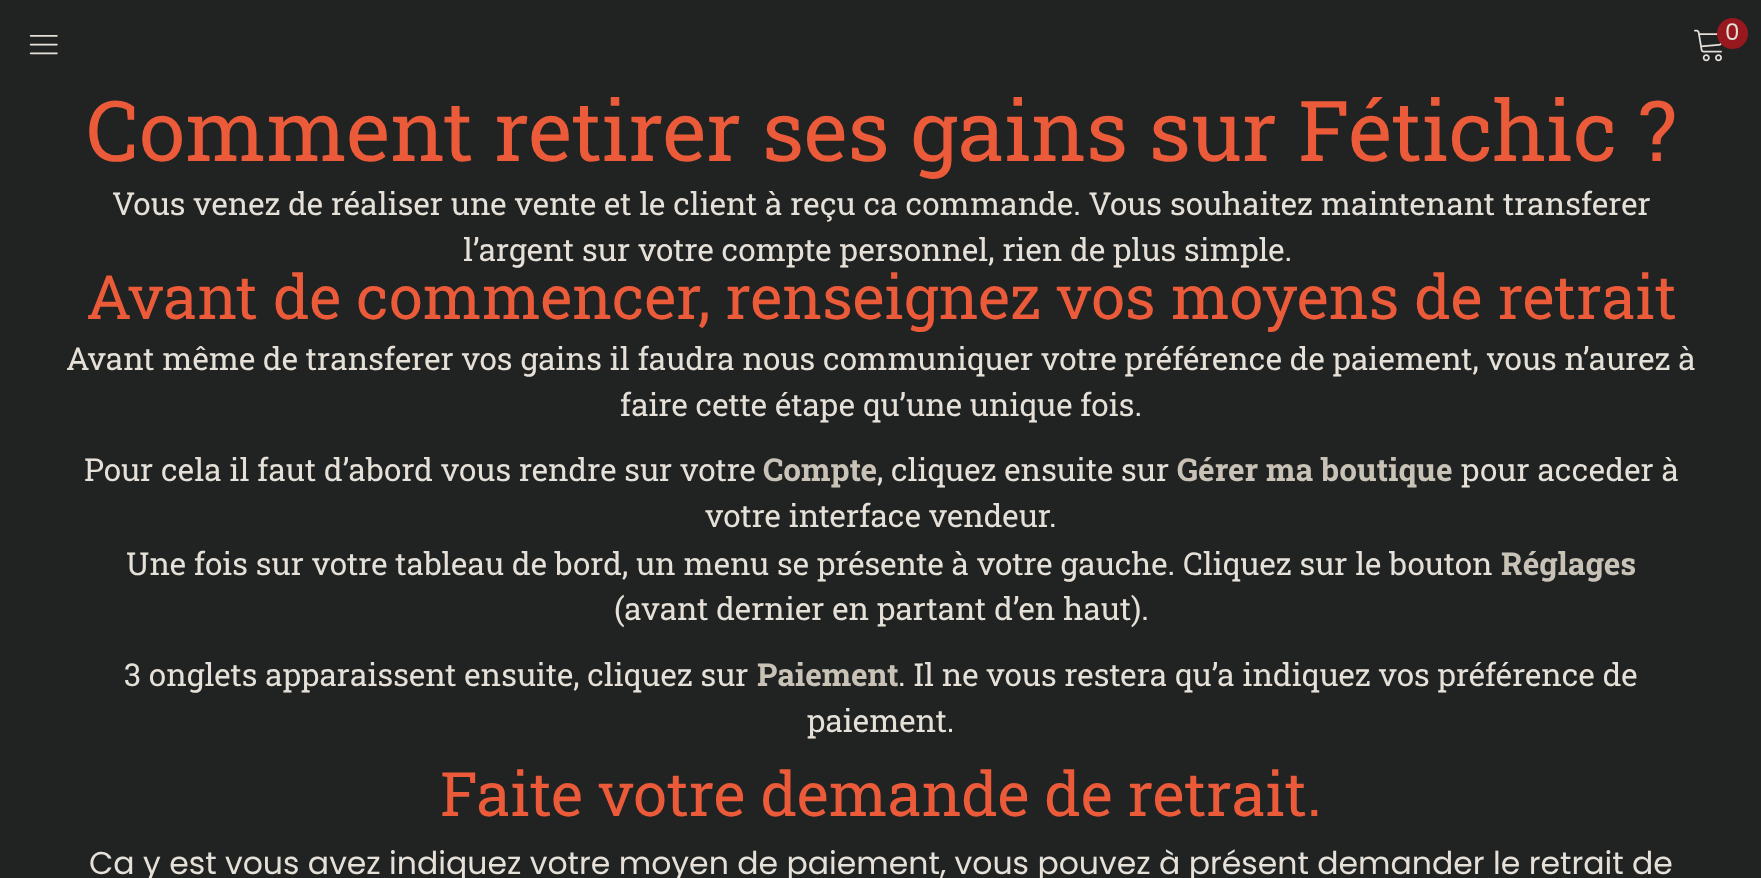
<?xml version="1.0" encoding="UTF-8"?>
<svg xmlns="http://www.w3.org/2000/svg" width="1761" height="878">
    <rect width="100%" height="100%" fill="#212222"/>
    <image x="1694" y="29" width="28" height="33" href="img_01.png"/>
    <circle cx="1732.5" cy="33.5" r="15.5" fill="#97181F"/>
    <text x="1725" y="40" font-family="Poppins" font-size="23" fill="#E5E0D8">0</text>
    <image x="29" y="35" width="29" height="20" href="img_02.png"/>
    <text x="86" y="161" font-family="Roboto Slab" font-size="84" fill="#EB5B39">Comment retirer ses gains sur Fétichic ?</text>
    <text x="112" y="215" font-family="Roboto Slab" font-size="31.5" fill="#E5E0D8">Vous venez de réaliser une vente et le client à reçu ca commande. Vous souhaitez maintenant transferer</text>
    <text x="463" y="261" font-family="Roboto Slab" font-size="31.5" fill="#E5E0D8">l’argent sur votre compte personnel, rien de plus simple.</text>
    <text x="86" y="319" font-family="Roboto Slab" font-size="61.25" fill="#EB5B39">Avant de commencer, renseignez vos moyens de retrait</text>
    <text x="66" y="370" font-family="Roboto Slab" font-size="31.5" fill="#E5E0D8">Avant même de transferer vos gains il faudra nous communiquer votre préférence de paiement, vous n’aurez à</text>
    <text x="620" y="416" font-family="Roboto Slab" font-size="31.5" fill="#E5E0D8">faire cette étape qu’une unique fois.</text>
    <text x="84" y="481" font-family="Roboto Slab" font-size="31.5" fill="#E5E0D8">Pour cela il faut d’abord vous rendre sur votre</text>
    <text x="763" y="481" font-family="Roboto Slab" font-size="31.5" font-weight="700" fill="#C9C2B7">Compte</text>
    <text x="877" y="481" font-family="Roboto Slab" font-size="31.5" fill="#E5E0D8">, cliquez ensuite sur</text>
    <text x="1177" y="481" font-family="Roboto Slab" font-size="31.5" font-weight="700" fill="#C9C2B7">Gérer ma boutique</text>
    <text x="1461" y="481" font-family="Roboto Slab" font-size="31.5" fill="#E5E0D8">pour acceder à</text>
    <text x="705" y="527" font-family="Roboto Slab" font-size="31.5" fill="#E5E0D8">votre interface vendeur.</text>
    <text x="126" y="575" font-family="Roboto Slab" font-size="31.5" fill="#E5E0D8">Une fois sur votre tableau de bord, un menu se présente à votre gauche. Cliquez sur le bouton</text>
    <text x="1501" y="575" font-family="Roboto Slab" font-size="31.5" font-weight="700" fill="#C9C2B7">Réglages</text>
    <text x="614" y="620" font-family="Roboto Slab" font-size="31.5" fill="#E5E0D8">(avant dernier en partant d’en haut).</text>
    <text x="124" y="686" font-family="Roboto Slab" font-size="31.5" fill="#E5E0D8">3 onglets apparaissent ensuite, cliquez sur</text>
    <text x="757" y="686" font-family="Roboto Slab" font-size="31.5" font-weight="700" fill="#C9C2B7">Paiement</text>
    <text x="898" y="686" font-family="Roboto Slab" font-size="31.5" fill="#E5E0D8">. Il ne vous restera qu’a indiquez vos préférence de</text>
    <text x="807" y="732" font-family="Roboto Slab" font-size="31.5" fill="#E5E0D8">paiement.</text>
    <text x="440" y="816" font-family="Roboto Slab" font-size="61.25" fill="#EB5B39">Faite votre demande de retrait.</text>
    <text x="89" y="874" font-family="Poppins" font-size="31.5" fill="#E5E0D8">Ca y est vous avez indiquez votre moyen de paiement, vous pouvez à présent demander le retrait de</text>
</svg>
